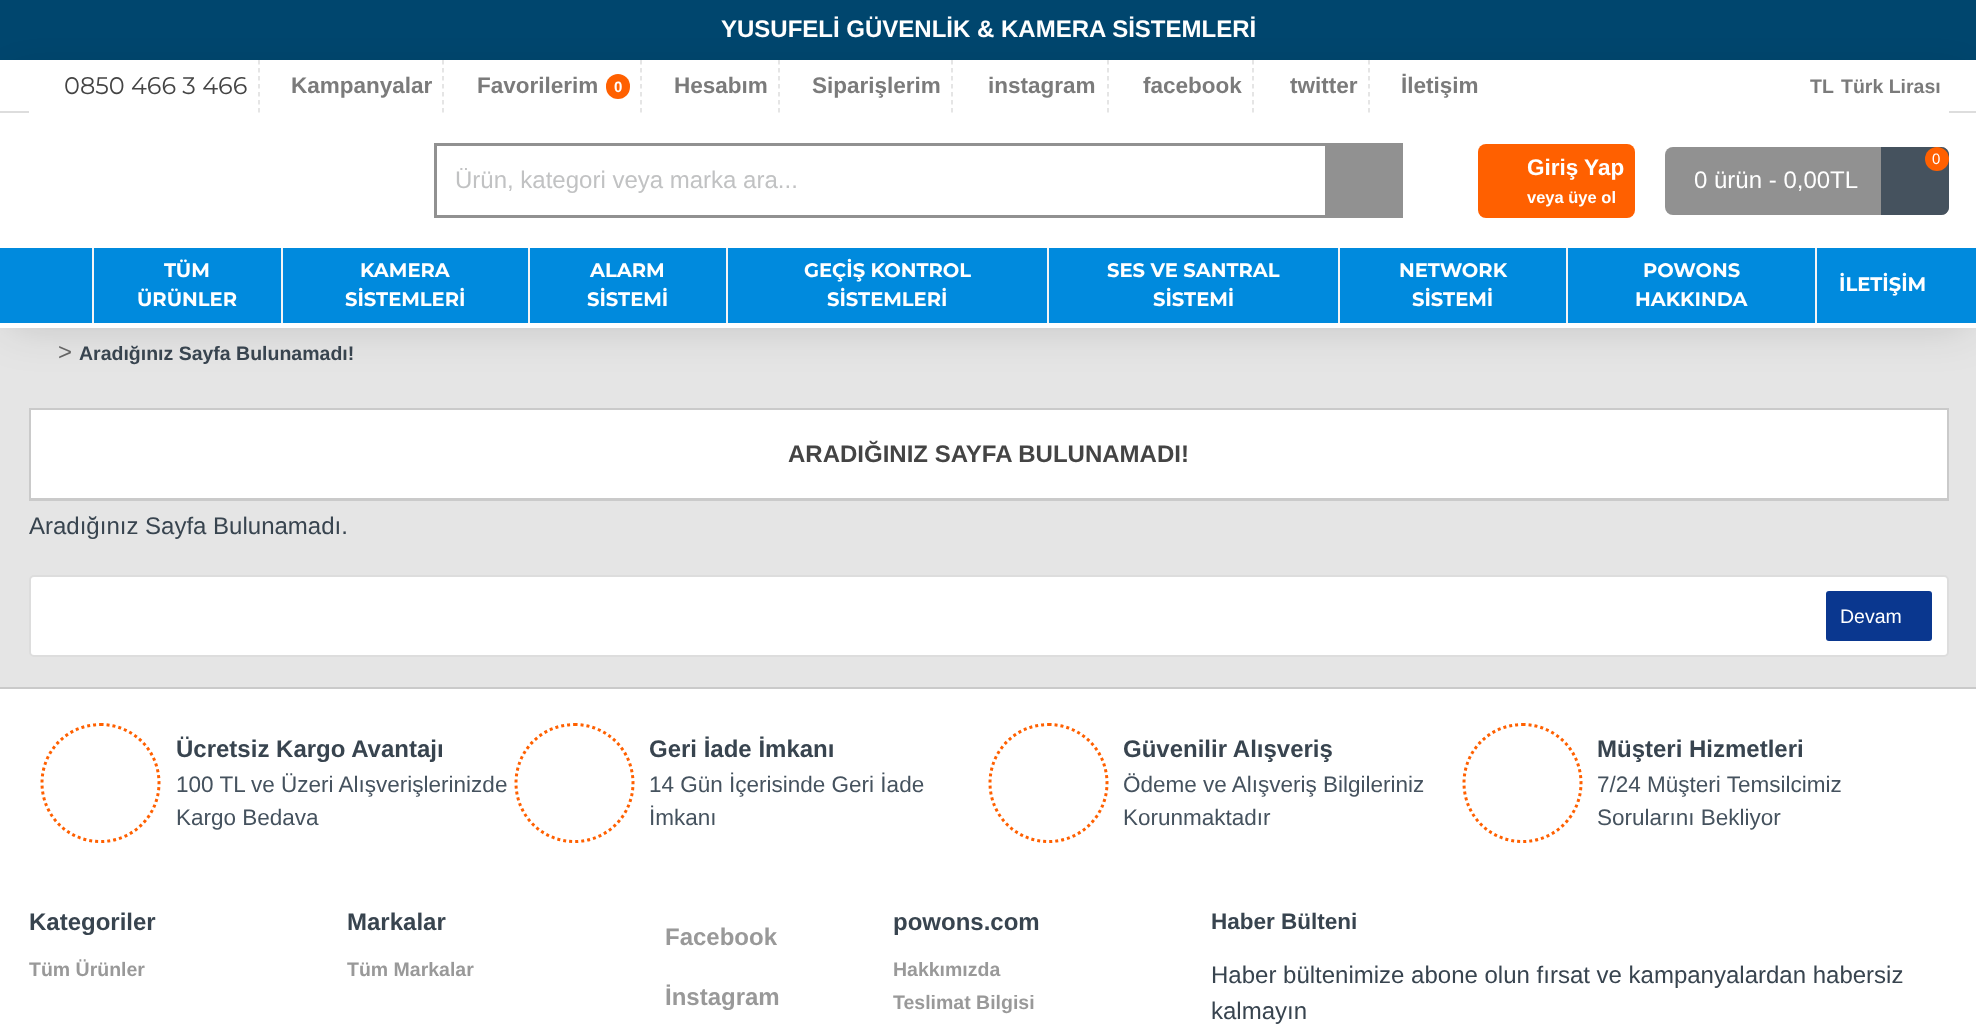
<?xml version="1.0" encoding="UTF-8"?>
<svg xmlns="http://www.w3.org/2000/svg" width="1976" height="1031">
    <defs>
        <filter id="blur1" x="-50%" y="-200%" width="200%" height="500%"><feGaussianBlur stdDeviation="22.5"/></filter>
    </defs>
    <rect width="100%" height="100%" fill="#E5E5E5"/>
    <rect x="0" y="0" width="1976" height="60" fill="#00466E"/>
    <text x="721" y="37" font-family="Liberation Sans" font-size="24" font-weight="700" fill="#FFFFFF">YUSUFELİ GÜVENLİK &amp; KAMERA SİSTEMLERİ</text>
    <rect x="8" y="75" width="1962" height="252" fill="#000000" fill-opacity="0.15" filter="url(#blur1)"/>
    <rect x="0" y="60" width="1976" height="188" fill="#FFFFFF"/>
    <rect x="0" y="323" width="1976" height="5" fill="#FFFFFF"/>
    <rect x="0" y="111" width="1976" height="2" fill="#DDDDDD"/>
    <rect x="29" y="111" width="1920" height="2" fill="#FFFFFF"/>
    <text x="64" y="94" font-family="Montserrat" font-size="24" fill="#444444">0850 466 3 466</text>
    <path d="M 259 60 V 112.5" fill="none" stroke="#DDDDDD" stroke-width="1.5" stroke-dasharray="4.5 3.5"/>
    <text x="291" y="93" font-family="Liberation Sans" font-size="22.5" font-weight="700" fill="#7B7B7B">Kampanyalar</text>
    <path d="M 443 60 V 112.5" fill="none" stroke="#DDDDDD" stroke-width="1.5" stroke-dasharray="4.5 3.5"/>
    <text x="477" y="93" font-family="Liberation Sans" font-size="22.5" font-weight="700" fill="#7B7B7B">Favorilerim</text>
    <rect x="606" y="74" width="24" height="25" rx="12" fill="#FF6000"/>
    <text x="614" y="92" font-family="Liberation Sans" font-size="15" font-weight="700" fill="#FFFFFF">0</text>
    <path d="M 641 60 V 112.5" fill="none" stroke="#DDDDDD" stroke-width="1.5" stroke-dasharray="4.5 3.5"/>
    <text x="674" y="93" font-family="Liberation Sans" font-size="22.5" font-weight="700" fill="#7B7B7B">Hesabım</text>
    <path d="M 779 60 V 112.5" fill="none" stroke="#DDDDDD" stroke-width="1.5" stroke-dasharray="4.5 3.5"/>
    <text x="812" y="93" font-family="Liberation Sans" font-size="22.5" font-weight="700" fill="#7B7B7B">Siparişlerim</text>
    <path d="M 952 60 V 112.5" fill="none" stroke="#DDDDDD" stroke-width="1.5" stroke-dasharray="4.5 3.5"/>
    <text x="988" y="93" font-family="Liberation Sans" font-size="22.5" font-weight="700" fill="#7B7B7B">instagram</text>
    <path d="M 1108 60 V 112.5" fill="none" stroke="#DDDDDD" stroke-width="1.5" stroke-dasharray="4.5 3.5"/>
    <text x="1143" y="93" font-family="Liberation Sans" font-size="22.5" font-weight="700" fill="#7B7B7B">facebook</text>
    <path d="M 1253 60 V 112.5" fill="none" stroke="#DDDDDD" stroke-width="1.5" stroke-dasharray="4.5 3.5"/>
    <text x="1290" y="93" font-family="Liberation Sans" font-size="22.5" font-weight="700" fill="#7B7B7B">twitter</text>
    <path d="M 1369 60 V 112.5" fill="none" stroke="#DDDDDD" stroke-width="1.5" stroke-dasharray="4.5 3.5"/>
    <text x="1401" y="93" font-family="Liberation Sans" font-size="22.5" font-weight="700" fill="#7B7B7B">İletişim</text>
    <text x="1810" y="93" font-family="Liberation Sans" font-size="19.5" font-weight="700" fill="#7B7B7B">TL</text>
    <text x="1841" y="93" font-family="Liberation Sans" font-size="19.5" font-weight="700" fill="#7B7B7B">Türk Lirası</text>
    <rect x="435.5" y="144.5" width="966" height="72" fill="none" stroke="#919191" stroke-width="3"/>
    <text x="455" y="188" font-family="Liberation Sans" font-size="24" fill="#C1C2C3">Ürün, kategori veya marka ara...</text>
    <rect x="1325" y="146" width="75" height="69" fill="#919191"/>
    <rect x="1478" y="144" width="157" height="74" rx="8" fill="#FF6000"/>
    <text x="1527" y="175" font-family="Liberation Sans" font-size="22.5" font-weight="700" fill="#FFFFFF">Giriş Yap</text>
    <text x="1527" y="203" font-family="Liberation Sans" font-size="16.5" font-weight="700" fill="#FFFFFF">veya üye ol</text>
    <rect x="1665" y="147" width="284" height="68" rx="8" fill="#919191"/>
    <path d="M 1881 147 H 1941 C 1945.5 147 1949 150.5 1949 155 V 207 C 1949 211.5 1945.5 215 1941 215 H 1881 Z" fill="#45525E"/>
    <circle cx="1937" cy="159" r="12" fill="#FF6000"/>
    <text x="1932" y="164" font-family="Liberation Sans" font-size="15" fill="#FFFFFF">0</text>
    <text x="1694" y="188" font-family="Liberation Sans" font-size="24" fill="#FFFFFF">0 ürün - 0,00TL</text>
    <rect x="0" y="248" width="1976" height="75" fill="#008ADD"/>
    <rect x="92" y="248" width="2" height="75" fill="#F5F5F5"/>
    <text x="164" y="277" font-family="Montserrat" font-size="19.5" font-weight="700" fill="#FFFFFF">TÜM</text>
    <text x="137" y="306" font-family="Montserrat" font-size="19.5" font-weight="700" fill="#FFFFFF">ÜRÜNLER</text>
    <rect x="281" y="248" width="2" height="75" fill="#F5F5F5"/>
    <text x="360" y="277" font-family="Montserrat" font-size="19.5" font-weight="700" fill="#FFFFFF">KAMERA</text>
    <text x="345" y="306" font-family="Montserrat" font-size="19.5" font-weight="700" fill="#FFFFFF">SİSTEMLERİ</text>
    <rect x="528" y="248" width="2" height="75" fill="#F5F5F5"/>
    <text x="590" y="277" font-family="Montserrat" font-size="19.5" font-weight="700" fill="#FFFFFF">ALARM</text>
    <text x="587" y="306" font-family="Montserrat" font-size="19.5" font-weight="700" fill="#FFFFFF">SİSTEMİ</text>
    <rect x="726" y="248" width="2" height="75" fill="#F5F5F5"/>
    <text x="804" y="277" font-family="Montserrat" font-size="19.5" font-weight="700" fill="#FFFFFF">GEÇİŞ KONTROL</text>
    <text x="827" y="306" font-family="Montserrat" font-size="19.5" font-weight="700" fill="#FFFFFF">SİSTEMLERİ</text>
    <rect x="1047" y="248" width="2" height="75" fill="#F5F5F5"/>
    <text x="1107" y="277" font-family="Montserrat" font-size="19.5" font-weight="700" fill="#FFFFFF">SES VE SANTRAL</text>
    <text x="1153" y="306" font-family="Montserrat" font-size="19.5" font-weight="700" fill="#FFFFFF">SİSTEMİ</text>
    <rect x="1338" y="248" width="2" height="75" fill="#F5F5F5"/>
    <text x="1399" y="277" font-family="Montserrat" font-size="19.5" font-weight="700" fill="#FFFFFF">NETWORK</text>
    <text x="1412" y="306" font-family="Montserrat" font-size="19.5" font-weight="700" fill="#FFFFFF">SİSTEMİ</text>
    <rect x="1566" y="248" width="2" height="75" fill="#F5F5F5"/>
    <text x="1643" y="277" font-family="Montserrat" font-size="19.5" font-weight="700" fill="#FFFFFF">POWONS</text>
    <text x="1635" y="306" font-family="Montserrat" font-size="19.5" font-weight="700" fill="#FFFFFF">HAKKINDA</text>
    <rect x="1815" y="248" width="2" height="75" fill="#F5F5F5"/>
    <text x="1839" y="291" font-family="Montserrat" font-size="19.5" font-weight="700" fill="#FFFFFF">İLETİŞİM</text>
    <text x="58" y="360" font-family="Liberation Sans" font-size="24" fill="#656565">&gt;</text>
    <text x="79" y="360" font-family="Liberation Sans" font-size="19.5" font-weight="700" fill="#38444F">Aradığınız Sayfa Bulunamadı!</text>
    <rect x="31" y="410" width="1916" height="88" fill="#FFFFFF"/>
    <rect x="29" y="408" width="1920" height="2" fill="#CACACA"/>
    <rect x="1947" y="408" width="2" height="93" fill="#CACACA"/>
    <rect x="29" y="498" width="1920" height="3" fill="#CACACA"/>
    <rect x="29" y="408" width="2" height="93" fill="#CACACA"/>
    <text x="788" y="462" font-family="Liberation Sans" font-size="24" font-weight="700" fill="#444444">ARADIĞINIZ SAYFA BULUNAMADI!</text>
    <text x="29" y="534" font-family="Liberation Sans" font-size="24" fill="#38444F">Aradığınız Sayfa Bulunamadı.</text>
    <rect x="30" y="576" width="1918" height="80" rx="4" fill="#FFFFFF" stroke="#DDDDDD" stroke-width="2"/>
    <rect x="1826" y="591" width="106" height="50" rx="3" fill="#0A378F"/>
    <text x="1840" y="623" font-family="Liberation Sans" font-size="19.5" fill="#FFFFFF">Devam</text>
    <rect x="0" y="689" width="1976" height="342" fill="#FFFFFF"/>
    <rect x="0" y="687" width="1976" height="2" fill="#CACACA"/>
    <path d="M 100.5 724.5 C 133 724.5 159 750.5 159 783 C 159 815.5 133 841.5 100.5 841.5 C 68 841.5 42 815.5 42 783 C 42 750.5 68 724.5 100.5 724.5 Z" fill="none" stroke="#FF6000" stroke-width="3" stroke-dasharray="3 3"/>
    <text x="176" y="757" font-family="Liberation Sans" font-size="24" font-weight="700" fill="#38444F">Ücretsiz Kargo Avantajı</text>
    <text font-family="Liberation Sans" font-size="22.5" fill="#45525E">
        <tspan x="176" y="792">100 TL ve Üzeri Alışverişlerinizde</tspan>
        <tspan x="176" y="825">Kargo Bedava</tspan>
    </text>
    <path d="M 574.5 724.5 C 607 724.5 633 750.5 633 783 C 633 815.5 607 841.5 574.5 841.5 C 542 841.5 516 815.5 516 783 C 516 750.5 542 724.5 574.5 724.5 Z" fill="none" stroke="#FF6000" stroke-width="3" stroke-dasharray="3 3"/>
    <text x="649" y="757" font-family="Liberation Sans" font-size="24" font-weight="700" fill="#38444F">Geri İade İmkanı</text>
    <text font-family="Liberation Sans" font-size="22.5" fill="#45525E">
        <tspan x="649" y="792">14 Gün İçerisinde Geri İade</tspan>
        <tspan x="649" y="825">İmkanı</tspan>
    </text>
    <path d="M 1048.5 724.5 C 1081 724.5 1107 750.5 1107 783 C 1107 815.5 1081 841.5 1048.5 841.5 C 1016 841.5 990 815.5 990 783 C 990 750.5 1016 724.5 1048.5 724.5 Z" fill="none" stroke="#FF6000" stroke-width="3" stroke-dasharray="3 3"/>
    <text x="1123" y="757" font-family="Liberation Sans" font-size="24" font-weight="700" fill="#38444F">Güvenilir Alışveriş</text>
    <text font-family="Liberation Sans" font-size="22.5" fill="#45525E">
        <tspan x="1123" y="792">Ödeme ve Alışveriş Bilgileriniz</tspan>
        <tspan x="1123" y="825">Korunmaktadır</tspan>
    </text>
    <path d="M 1522.5 724.5 C 1555 724.5 1581 750.5 1581 783 C 1581 815.5 1555 841.5 1522.5 841.5 C 1490 841.5 1464 815.5 1464 783 C 1464 750.5 1490 724.5 1522.5 724.5 Z" fill="none" stroke="#FF6000" stroke-width="3" stroke-dasharray="3 3"/>
    <text x="1597" y="757" font-family="Liberation Sans" font-size="24" font-weight="700" fill="#38444F">Müşteri Hizmetleri</text>
    <text font-family="Liberation Sans" font-size="22.5" fill="#45525E">
        <tspan x="1597" y="792">7/24 Müşteri Temsilcimiz</tspan>
        <tspan x="1597" y="825">Sorularını Bekliyor</tspan>
    </text>
    <text x="29" y="930" font-family="Liberation Sans" font-size="24" font-weight="700" fill="#38444F">Kategoriler</text>
    <text x="29" y="976" font-family="Liberation Sans" font-size="19.5" font-weight="700" fill="#999999">Tüm Ürünler</text>
    <text x="347" y="930" font-family="Liberation Sans" font-size="24" font-weight="700" fill="#38444F">Markalar</text>
    <text x="347" y="976" font-family="Liberation Sans" font-size="19.5" font-weight="700" fill="#999999">Tüm Markalar</text>
    <text x="665" y="945" font-family="Liberation Sans" font-size="24" font-weight="700" fill="#999999">Facebook</text>
    <text x="665" y="1005" font-family="Liberation Sans" font-size="24" font-weight="700" fill="#999999">İnstagram</text>
    <text x="893" y="930" font-family="Liberation Sans" font-size="24" font-weight="700" fill="#38444F">powons.com</text>
    <text font-family="Liberation Sans" font-size="19.5" font-weight="700" fill="#999999">
        <tspan x="893" y="976">Hakkımızda</tspan>
        <tspan x="893" y="1009">Teslimat Bilgisi</tspan>
    </text>
    <text x="1211" y="929" font-family="Liberation Sans" font-size="22.5" font-weight="700" fill="#38444F">Haber Bülteni</text>
    <text font-family="Liberation Sans" font-size="24" fill="#38444F">
        <tspan x="1211" y="983">Haber bültenimize abone olun fırsat ve kampanyalardan habersiz</tspan>
        <tspan x="1211" y="1019">kalmayın</tspan>
    </text>
</svg>
